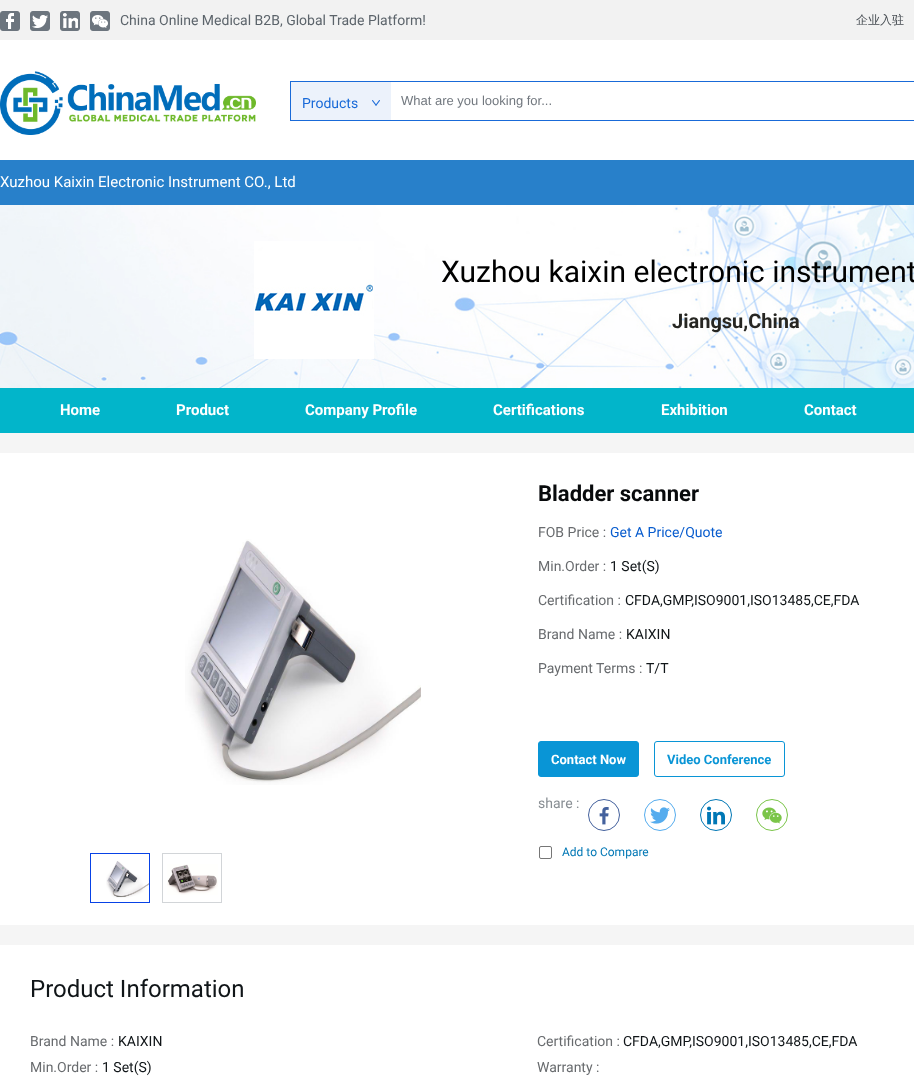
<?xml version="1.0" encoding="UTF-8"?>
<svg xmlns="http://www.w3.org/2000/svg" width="914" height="1080">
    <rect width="100%" height="100%" fill="#F5F5F5"/>
    <rect x="0" y="40" width="914" height="120" fill="#FFFFFF"/>
    <rect x="0" y="0" width="914" height="40" fill="#F2F2F2"/>
    <image x="0" y="11" width="20" height="20" href="img_01.png"/>
    <image x="30" y="11" width="20" height="20" href="img_02.png"/>
    <image x="60" y="11" width="20" height="20" href="img_03.png"/>
    <image x="90" y="11" width="20" height="20" href="img_04.png"/>
    <text x="120" y="25" font-family="Roboto" font-size="14" fill="#5C646B">China Online Medical B2B, Global Trade Platform!</text>
    <text x="856" y="24" font-family="WenQuanYi Zen Hei" font-size="12" font-weight="500" fill="#464C52">企业入驻</text>
    <image x="0" y="71" width="256" height="64" href="img_05.png"/>
    <rect x="290" y="81" width="624" height="1" fill="#196AD8"/>
    <rect x="290" y="120" width="624" height="1" fill="#196AD8"/>
    <rect x="290" y="81" width="1" height="40" fill="#196AD8"/>
    <rect x="291" y="82" width="100" height="38" fill="#ECF2FB"/>
    <text x="302" y="108" font-family="Roboto" font-size="14" fill="#196AD8">Products</text>
    <image x="372" y="100" width="8" height="6" href="img_06.png"/>
    <text x="401" y="105" font-family="Liberation Sans" font-size="13" fill="#72787F">What are you looking for...</text>
    <rect x="0" y="160" width="914" height="45" fill="#2880CA"/>
    <text x="0" y="187" font-family="Roboto" font-size="15" fill="#FFFFFF">Xuzhou Kaixin Electronic Instrument CO., Ltd</text>
    <image x="0" y="205" width="914" height="183" href="img_07.png"/>
    <image x="254" y="241" width="120" height="118" href="img_08.png"/>
    <text x="441" y="282" font-family="Roboto" font-size="30" fill="#000000">Xuzhou kaixin electronic instrument</text>
    <text x="672" y="328" font-family="Roboto" font-size="20" font-weight="700" fill="#262622">Jiangsu,China</text>
    <rect x="0" y="388" width="914" height="45" fill="#02B5CA"/>
    <text x="60" y="415" font-family="Roboto" font-size="15" font-weight="700" fill="#FFFFFF">Home</text>
    <text x="176" y="415" font-family="Roboto" font-size="15" font-weight="700" fill="#FFFFFF">Product</text>
    <text x="305" y="415" font-family="Roboto" font-size="15" font-weight="700" fill="#FFFFFF">Company Profile</text>
    <text x="493" y="415" font-family="Roboto" font-size="15" font-weight="700" fill="#FFFFFF">Certifications</text>
    <text x="661" y="415" font-family="Roboto" font-size="15" font-weight="700" fill="#FFFFFF">Exhibition</text>
    <text x="804" y="415" font-family="Roboto" font-size="15" font-weight="700" fill="#FFFFFF">Contact</text>
    <rect x="0" y="453" width="914" height="472" fill="#FFFFFF"/>
    <image x="185" y="539" width="236" height="246" href="img_09.png"/>
    <rect x="90.5" y="853.5" width="59" height="49" fill="none" stroke="#0842E6"/>
    <image x="106" y="861" width="43" height="37" href="img_10.png"/>
    <rect x="162.5" y="853.5" width="59" height="49" fill="none" stroke="#D2D5D8"/>
    <image x="167" y="864" width="51" height="31" href="img_11.png"/>
    <text x="538" y="501" font-family="Roboto" font-size="22" font-weight="700" fill="#080A0C">Bladder scanner</text>
    <text x="538" y="537" font-family="Roboto" font-size="14" fill="#686B6E">FOB Price :</text>
    <text x="610" y="537" font-family="Roboto" font-size="14" fill="#085CCE">Get A Price/Quote</text>
    <text x="538" y="571" font-family="Roboto" font-size="14" fill="#686B6E">Min.Order :</text>
    <text x="610" y="571" font-family="Roboto" font-size="14" fill="#101518">1 Set(S)</text>
    <text x="538" y="605" font-family="Roboto" font-size="14" fill="#686B6E">Certification :</text>
    <text x="625" y="605" font-family="Roboto" font-size="14" fill="#101518">CFDA,GMP,ISO9001,ISO13485,CE,FDA</text>
    <text x="538" y="639" font-family="Roboto" font-size="14" fill="#686B6E">Brand Name :</text>
    <text x="626" y="639" font-family="Roboto" font-size="14" fill="#101518">KAIXIN</text>
    <text x="538" y="673" font-family="Roboto" font-size="14" fill="#686B6E">Payment Terms :</text>
    <text x="646" y="673" font-family="Roboto" font-size="14" fill="#101518">T/T</text>
    <rect x="538.5" y="741.5" width="100" height="35" rx="2.5" fill="#0995D6" stroke="#0995D6"/>
    <text x="551" y="764" font-family="Roboto" font-size="13" font-weight="700" fill="#FFFFFF">Contact Now</text>
    <rect x="654.5" y="741.5" width="130" height="35" rx="2.5" fill="none" stroke="#0995D6"/>
    <text x="667" y="764" font-family="Roboto" font-size="13" font-weight="700" fill="#0995D6">Video Conference</text>
    <text x="538" y="808" font-family="Roboto" font-size="14" fill="#888E93">share :</text>
    <circle cx="604" cy="815" r="15.5" fill="none" stroke="#44619D"/>
    <image x="599" y="807" width="10" height="18" href="img_12.png"/>
    <circle cx="660" cy="815" r="15.5" fill="none" stroke="#55ACEE"/>
    <image x="650" y="807" width="20" height="17" href="img_13.png"/>
    <circle cx="716" cy="815" r="15.5" fill="none" stroke="#0077B5"/>
    <image x="707" y="806" width="18" height="19" href="img_14.png"/>
    <circle cx="772" cy="815" r="15.5" fill="none" stroke="#7BC549"/>
    <image x="762" y="807" width="20" height="17" href="img_15.png"/>
    <rect x="539.5" y="846.5" width="12" height="12" rx="1.5" fill="none" stroke="#767676"/>
    <text x="562" y="856" font-family="Roboto" font-size="12" fill="#0077B5">Add to Compare</text>
    <rect x="0" y="945" width="914" height="135" fill="#FFFFFF"/>
    <text x="30" y="997" font-family="Roboto" font-size="24" fill="#101518">Product Information</text>
    <text x="30" y="1046" font-family="Roboto" font-size="14" fill="#686B6E">Brand Name :</text>
    <text x="118" y="1046" font-family="Roboto" font-size="14" fill="#101518">KAIXIN</text>
    <text x="537" y="1046" font-family="Roboto" font-size="14" fill="#686B6E">Certification :</text>
    <text x="623" y="1046" font-family="Roboto" font-size="14" fill="#101518">CFDA,GMP,ISO9001,ISO13485,CE,FDA</text>
    <text x="30" y="1072" font-family="Roboto" font-size="14" fill="#686B6E">Min.Order :</text>
    <text x="102" y="1072" font-family="Roboto" font-size="14" fill="#101518">1 Set(S)</text>
    <text x="537" y="1072" font-family="Roboto" font-size="14" fill="#686B6E">Warranty :</text>
</svg>
